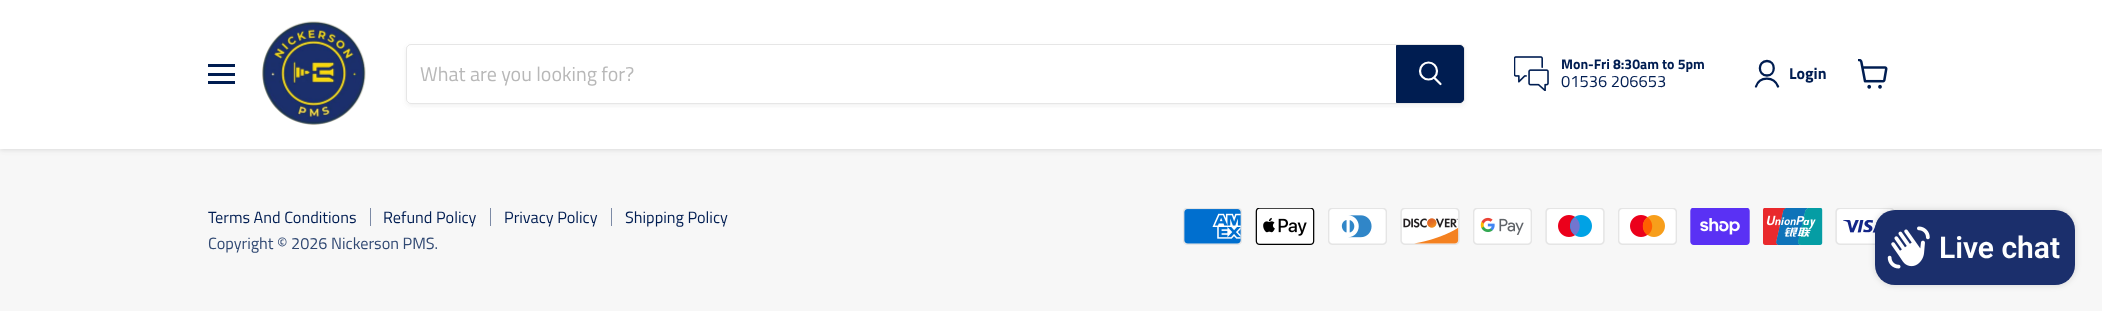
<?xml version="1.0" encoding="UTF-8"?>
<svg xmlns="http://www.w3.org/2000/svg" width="2102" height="311">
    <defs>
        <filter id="blur1" x="-50%" y="-200%" width="200%" height="500%"><feGaussianBlur stdDeviation="2.5"/></filter>
        <clipPath id="clip1"><path d="M 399 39 H 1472 V 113 H 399 Z M 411 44 H 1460 C 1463 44 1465 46 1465 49 V 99 C 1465 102 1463 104 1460 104 H 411 C 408 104 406 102 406 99 V 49 C 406 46 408 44 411 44 Z" clip-rule="evenodd"/></clipPath>
        <filter id="blur2" x="-50%" y="-200%" width="200%" height="500%"><feGaussianBlur stdDeviation="2"/></filter>
        <filter id="blur3" x="-50%" y="-200%" width="200%" height="500%"><feGaussianBlur stdDeviation="3"/></filter>
    </defs>
    <rect width="100%" height="100%" fill="#F7F7F7"/>
    <rect x="0" y="0" width="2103" height="150" fill="#808080" fill-opacity="0.25" filter="url(#blur1)"/>
    <rect x="0" y="0" width="2102" height="149" fill="#FFFFFF"/>
    <rect x="208" y="64" width="27" height="3" fill="#001D51"/>
    <rect x="208" y="73" width="27" height="3" fill="#001D51"/>
    <rect x="208" y="81" width="27" height="3" fill="#001D51"/>
    <image x="262" y="21" width="104" height="104" href="img_01.png"/>
    <g clip-path="url(#clip1)">
        <rect x="406" y="46" width="1059" height="60" rx="5" fill="#808080" fill-opacity="0.11" filter="url(#blur2)"/>
    </g>
    <rect x="406.5" y="44.5" width="1058" height="59" rx="4.5" fill="none" stroke="#808080" stroke-opacity="0.2"/>
    <text x="420" y="81" font-family="Titillium Web" font-size="20" fill="#B8B8B8">What are you looking for?</text>
    <path d="M 1396.5 45.5 H 1460 C 1462 45.5 1463.5 47 1463.5 49 V 99 C 1463.5 101 1462 102.5 1460 102.5 H 1396.5 Z" fill="#001D51" stroke="#001D51"/>
    <path d="M 1440.5 84 L 1434.5 78" fill="none" stroke="#FFFFFF" stroke-width="2.2" stroke-linecap="round"/>
    <circle cx="1428.5" cy="71" r="8.5" fill="none" stroke="#FFFFFF" stroke-width="2.2"/>
    <image x="1514" y="56" width="35" height="35" href="img_02.png"/>
    <text x="1561" y="69" font-family="Titillium Web" font-size="14" font-weight="700" fill="#001D52">Mon-Fri 8:30am to 5pm</text>
    <text x="1561" y="87" font-family="Titillium Web" font-size="16.5" fill="#001D52">01536 206653</text>
    <path d="M 1767 75.5 C 1776 75.5 1776 61 1767 61 C 1757.5 61 1757.5 75.5 1767 75.5 Z M 1778 86.5 C 1774 76 1759.5 76 1756 86.5" fill="none" stroke="#001D51" stroke-width="2.3" stroke-linecap="round" stroke-linejoin="round"/>
    <text x="1789" y="79" font-family="Titillium Web" font-size="16" font-weight="700" fill="#001D52">Login</text>
    <image x="1858" y="59" width="30" height="30" href="img_03.png"/>
    <rect x="370" y="208" width="1" height="18" fill="#7C8AA5"/>
    <text x="208" y="223" font-family="Titillium Web" font-size="16.25" fill="#001D52">Terms And Conditions</text>
    <rect x="490" y="208" width="1" height="18" fill="#7C8AA5"/>
    <text x="383" y="223" font-family="Titillium Web" font-size="16.25" fill="#001D52">Refund Policy</text>
    <rect x="611" y="208" width="1" height="18" fill="#7C8AA5"/>
    <text x="504" y="223" font-family="Titillium Web" font-size="16.25" fill="#001D52">Privacy Policy</text>
    <text x="625" y="223" font-family="Titillium Web" font-size="16.25" fill="#001D52">Shipping Policy</text>
    <text x="208" y="249" font-family="Titillium Web" font-size="16.25" fill="#314973">Copyright © 2026 Nickerson PMS.</text>
    <image x="1183" y="208" width="59" height="37" href="img_04.png"/>
    <image x="1255" y="208" width="60" height="37" href="img_05.png"/>
    <image x="1328" y="208" width="59" height="37" href="img_06.png"/>
    <image x="1400" y="208" width="60" height="37" href="img_07.png"/>
    <image x="1473" y="208" width="59" height="37" href="img_08.png"/>
    <image x="1545" y="208" width="60" height="37" href="img_09.png"/>
    <image x="1618" y="208" width="59" height="37" href="img_10.png"/>
    <image x="1690" y="208" width="60" height="37" href="img_11.png"/>
    <image x="1763" y="208" width="60" height="37" href="img_12.png"/>
    <image x="1835" y="208" width="60" height="37" href="img_13.png"/>
    <rect x="1875" y="210" width="200" height="75" rx="20" fill="#000000" fill-opacity="0.15" filter="url(#blur3)"/>
    <rect x="1875" y="210" width="200" height="75" rx="20" fill="#1B2F6C"/>
    <image x="1887" y="226" width="43" height="43" href="img_14.png"/>
    <text x="1939" y="258" font-family="Roboto" font-size="30" font-weight="600" fill="#FFFFFF">Live chat</text>
</svg>
